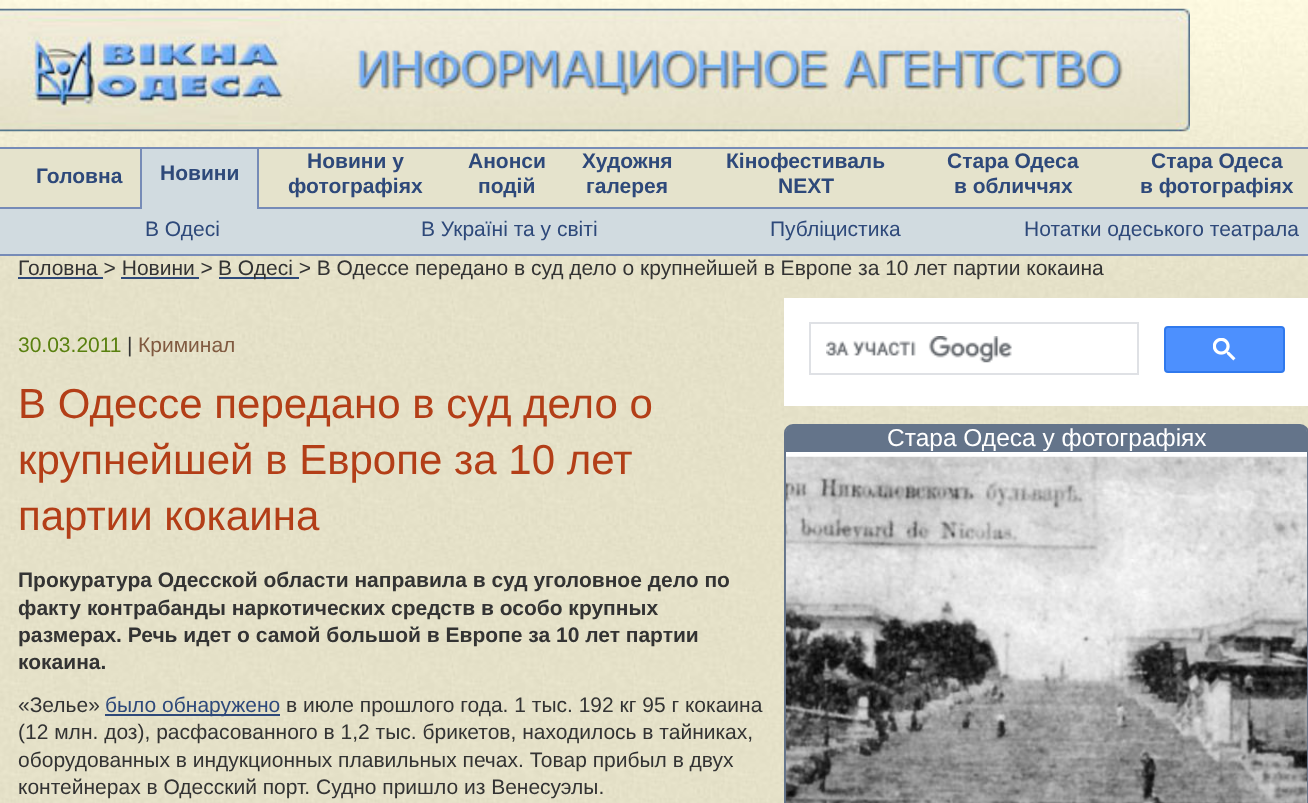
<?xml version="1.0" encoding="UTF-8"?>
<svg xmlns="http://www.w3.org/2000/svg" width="1308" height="803">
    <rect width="100%" height="100%" fill="#FFFFFF"/>
    <image x="0" y="280" width="1308" height="523" href="img_01.png"/>
    <image x="0" y="0" width="1308" height="280" href="img_02.png"/>
    <image x="0" y="8" width="1190" height="124" href="img_03.png"/>
    <rect x="0" y="149" width="1308" height="58" fill="#E5E3CC"/>
    <rect x="0" y="147" width="1308" height="2" fill="#768BB7"/>
    <text x="36" y="183" font-family="Liberation Sans" font-size="21" font-weight="700" fill="#2E497A">Головна</text>
    <rect x="142" y="149" width="115" height="58" fill="#D1DBE0"/>
    <rect x="257" y="149" width="2" height="58" fill="#768BB7"/>
    <rect x="140" y="149" width="2" height="58" fill="#768BB7"/>
    <text x="160" y="180" font-family="Liberation Sans" font-size="21" font-weight="700" fill="#2E497A">Новини</text>
    <rect x="0" y="207" width="1308" height="2" fill="#768BB7"/>
    <rect x="142" y="207" width="115" height="2" fill="#D1DBE0"/>
    <text x="307" y="168" font-family="Liberation Sans" font-size="21" font-weight="700" fill="#2E497A">Новини у</text>
    <text x="288" y="193" font-family="Liberation Sans" font-size="21" font-weight="700" fill="#2E497A">фотографіях</text>
    <text x="468" y="168" font-family="Liberation Sans" font-size="21" font-weight="700" fill="#2E497A">Анонси</text>
    <text x="478" y="193" font-family="Liberation Sans" font-size="21" font-weight="700" fill="#2E497A">подій</text>
    <text x="582" y="168" font-family="Liberation Sans" font-size="21" font-weight="700" fill="#2E497A">Художня</text>
    <text x="586" y="193" font-family="Liberation Sans" font-size="21" font-weight="700" fill="#2E497A">галерея</text>
    <text x="726" y="168" font-family="Liberation Sans" font-size="21" font-weight="700" fill="#2E497A">Кінофестиваль</text>
    <text x="778" y="193" font-family="Liberation Sans" font-size="21" font-weight="700" fill="#2E497A">NEXT</text>
    <text x="947" y="168" font-family="Liberation Sans" font-size="21" font-weight="700" fill="#2E497A">Стара Одеса</text>
    <text x="954" y="193" font-family="Liberation Sans" font-size="21" font-weight="700" fill="#2E497A">в обличчях</text>
    <text x="1151" y="168" font-family="Liberation Sans" font-size="21" font-weight="700" fill="#2E497A">Стара Одеса</text>
    <text x="1140" y="193" font-family="Liberation Sans" font-size="21" font-weight="700" fill="#2E497A">в фотографіях</text>
    <rect x="0" y="209" width="1308" height="45" fill="#D1DBE0"/>
    <rect x="0" y="254" width="1308" height="2" fill="#768BB7"/>
    <text x="145" y="236" font-family="Liberation Sans" font-size="21" fill="#2E497A">В Одесі</text>
    <text x="421" y="236" font-family="Liberation Sans" font-size="21" fill="#2E497A">В Україні та у світі</text>
    <text x="770" y="236" font-family="Liberation Sans" font-size="21" fill="#2E497A">Публіцистика</text>
    <text x="1024" y="236" font-family="Liberation Sans" font-size="21" fill="#2E497A">Нотатки одеського театрала</text>
    <text x="18" y="275" font-family="Liberation Sans" font-size="21" fill="#333333">Головна &gt; Новини &gt;</text>
    <rect x="18" y="277" width="85" height="2" fill="#2E497A"/>
    <rect x="121" y="277" width="78" height="2" fill="#2E497A"/>
    <rect x="219" y="277" width="80" height="2" fill="#2E497A"/>
    <text x="218" y="275" font-family="Liberation Sans" font-size="21" fill="#333333">В Одесі &gt; В Одессе передано в суд дело о крупнейшей в Европе за 10 лет партии кокаина</text>
    <text x="18" y="352" font-family="Liberation Sans" font-size="21" fill="#59800F">30.03.2011</text>
    <text x="127" y="352" font-family="Liberation Sans" font-size="21" fill="#333333">|</text>
    <text x="138" y="352" font-family="Liberation Sans" font-size="21" fill="#805A40">Криминал</text>
    <text font-family="Liberation Sans" font-size="42" fill="#B33E17">
        <tspan x="18" y="418">В Одессе передано в суд дело о</tspan>
        <tspan x="18" y="474">крупнейшей в Европе за 10 лет</tspan>
        <tspan x="18" y="530">партии кокаина</tspan>
    </text>
    <text font-family="Liberation Sans" font-size="21" font-weight="700" fill="#333333">
        <tspan x="18" y="587">Прокуратура Одесской области направила в суд уголовное дело по</tspan>
        <tspan x="18" y="615">факту контрабанды наркотических средств в особо крупных</tspan>
        <tspan x="18" y="642">размерах. Речь идет о самой большой в Европе за 10 лет партии</tspan>
        <tspan x="18" y="669">кокаина.</tspan>
    </text>
    <text x="18" y="712" font-family="Liberation Sans" font-size="21" fill="#333333">«Зелье»</text>
    <rect x="105" y="714" width="175" height="2" fill="#2E497A"/>
    <text x="105" y="712" font-family="Liberation Sans" font-size="21" fill="#2E497A">было обнаружено</text>
    <text x="286" y="712" font-family="Liberation Sans" font-size="21" fill="#333333">в июле прошлого года. 1 тыс. 192 кг 95 г кокаина</text>
    <text font-family="Liberation Sans" font-size="21" fill="#333333">
        <tspan x="18" y="739">(12 млн. доз), расфасованного в 1,2 тыс. брикетов, находилось в тайниках,</tspan>
        <tspan x="18" y="767">оборудованных в индукционных плавильных печах. Товар прибыл в двух</tspan>
        <tspan x="18" y="794">контейнерах в Одесский порт. Судно пришло из Венесуэлы.</tspan>
    </text>
    <rect x="784" y="298" width="524" height="108" fill="#FFFFFF"/>
    <rect x="810" y="323" width="328" height="51" fill="none" stroke="#DFE1E5" stroke-width="2"/>
    <image x="826" y="336" width="186" height="27" href="img_04.png"/>
    <rect x="1165" y="327" width="119" height="45" rx="3" fill="#4D90FE" stroke="#3079ED" stroke-width="2"/>
    <image x="1213" y="338" width="23" height="23" href="img_05.png"/>
    <rect x="785" y="425" width="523" height="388" rx="8" fill="#FFFFFF" stroke="#64748A" stroke-width="2"/>
    <path d="M 793 425 H 1300 C 1304 425 1307 428 1307 432 V 452 H 786 V 432 C 786 428 789 425 793 425 Z" fill="#64748A"/>
    <text x="887" y="446" font-family="Liberation Sans" font-size="24.5" fill="#FFFFFF">Стара Одеса у фотографіях</text>
    <image x="785" y="456" width="523" height="347" href="img_06.png"/>
</svg>
